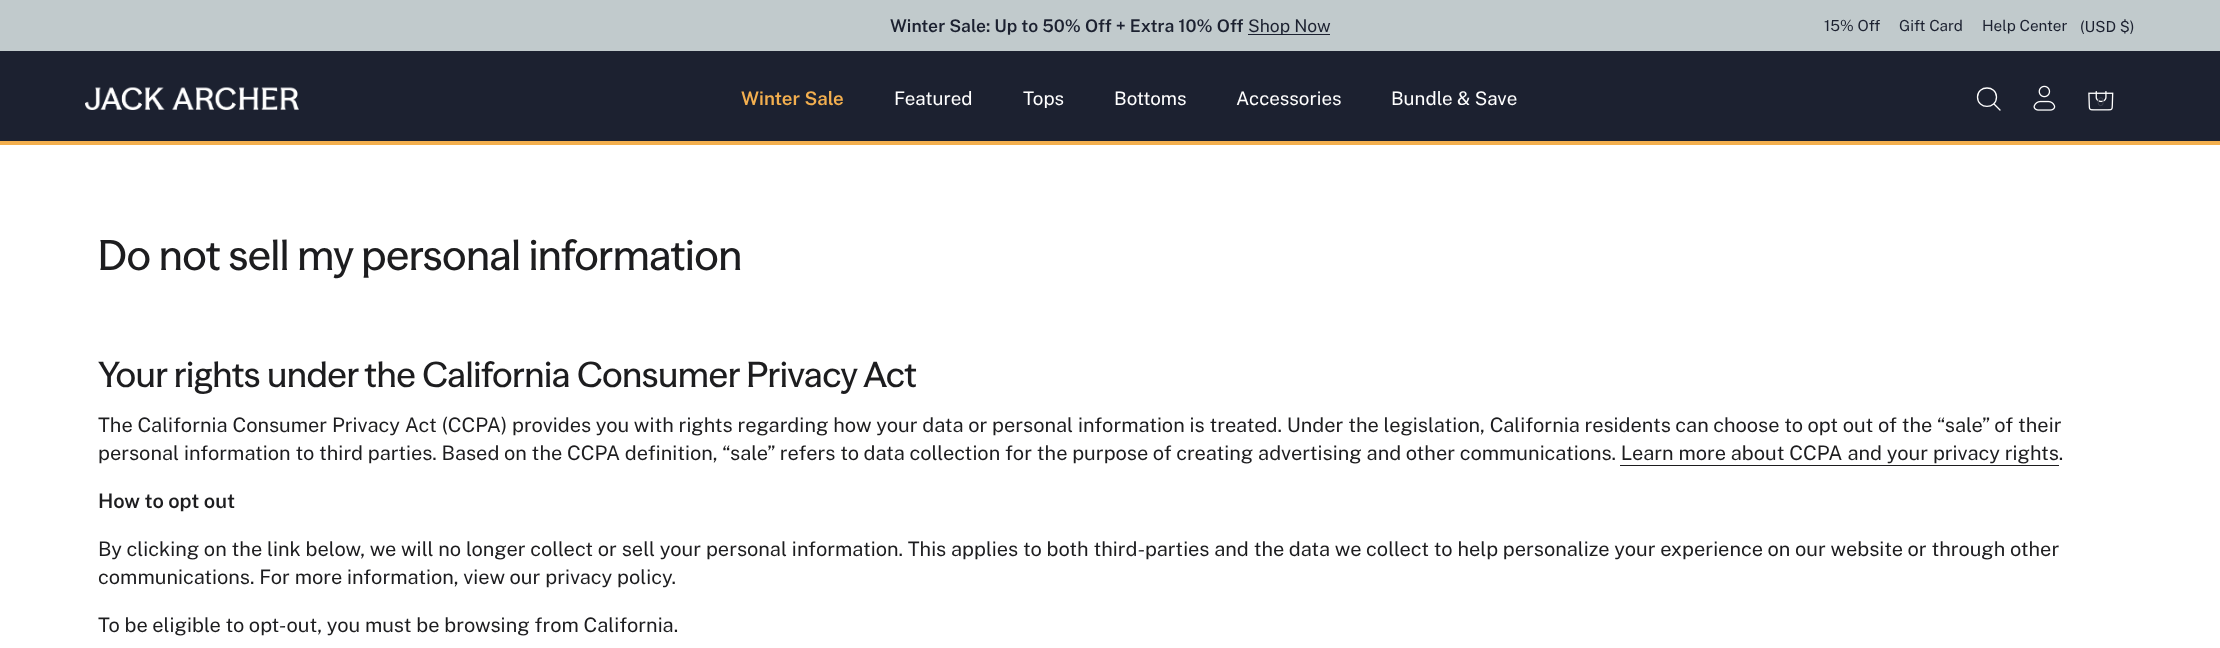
<?xml version="1.0" encoding="UTF-8"?>
<svg xmlns="http://www.w3.org/2000/svg" width="2220" height="648">
    <rect width="100%" height="100%" fill="#FFFFFF"/>
    <rect x="0" y="0" width="2220" height="51" fill="#C1CACC"/>
    <text x="890" y="32" font-family="Public Sans" font-size="17.5" font-weight="600" fill="#1C2130">Winter Sale: Up to 50% Off + Extra 10% Off</text>
    <rect x="1248" y="34" width="82" height="1" fill="#1C2130"/>
    <text x="1248" y="32" font-family="Public Sans" font-size="17.5" font-weight="100" fill="#1C2130">Shop Now</text>
    <text x="1824" y="31" font-family="Public Sans" font-size="15.25" font-weight="100" fill="#1C2130">15% Off</text>
    <text x="1899" y="31" font-family="Public Sans" font-size="15.25" font-weight="100" fill="#1C2130">Gift Card</text>
    <text x="1982" y="31" font-family="Public Sans" font-size="15.25" font-weight="100" fill="#1C2130">Help Center</text>
    <text x="2080" y="32" font-family="Public Sans" font-size="15.25" font-weight="100" fill="#1C2130">(USD $)</text>
    <rect x="0" y="51" width="2220" height="90" fill="#1C2130"/>
    <image x="85" y="87" width="214" height="23" href="img_01.png"/>
    <text x="741" y="105" font-family="Public Sans" font-size="18.75" font-weight="600" fill="#F3AF4F">Winter Sale</text>
    <text x="894" y="105" font-family="Public Sans" font-size="18.75" font-weight="100" fill="#FFFFFF">Featured</text>
    <text x="1023" y="105" font-family="Public Sans" font-size="18.75" font-weight="100" fill="#FFFFFF">Tops</text>
    <text x="1114" y="105" font-family="Public Sans" font-size="18.75" font-weight="100" fill="#FFFFFF">Bottoms</text>
    <text x="1236" y="105" font-family="Public Sans" font-size="18.75" font-weight="100" fill="#FFFFFF">Accessories</text>
    <text x="1391" y="105" font-family="Public Sans" font-size="18.75" font-weight="100" fill="#FFFFFF">Bundle &amp; Save</text>
    <path d="M 1994 104 L 2000 110 M 1996.5 97 C 1996.5 109.5 1977.5 109.5 1977.5 97 C 1977.5 85 1996.5 85 1996.5 97 Z" fill="none" stroke="#FFFFFF" stroke-width="1.3" stroke-linecap="round" stroke-linejoin="round"/>
    <image x="2033" y="85" width="23" height="26" href="img_02.png"/>
    <image x="2088" y="91" width="26" height="20" href="img_03.png"/>
    <text x="2097" y="106" font-family="Public Sans" font-size="12" font-weight="100" fill="#3B3F4C">0</text>
    <rect x="0" y="141" width="2220" height="4" fill="#F3AF4E"/>
    <text x="98" y="270" font-family="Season" font-size="41.7" fill="#1D1D1F">Do not sell my personal information</text>
    <text x="98" y="387" font-family="Season" font-size="35" fill="#1D1D1F">Your rights under the California Consumer Privacy Act</text>
    <text font-family="Public Sans" font-size="20" font-weight="100" fill="#1D1D1F">
        <tspan x="98" y="432">The California Consumer Privacy Act (CCPA) provides you with rights regarding how your data or personal information is treated. Under the legislation, California residents can choose to opt out of the “sale” of their</tspan>
        <tspan x="98" y="460">personal information to third parties. Based on the CCPA definition, “sale” refers to data collection for the purpose of creating advertising and other communications. Learn more about CCPA and your privacy rights.</tspan>
    </text>
    <rect x="1620" y="465" width="439" height="1" fill="#1D1D1F"/>
    <text x="98" y="508" font-family="Public Sans" font-size="20" font-weight="600" fill="#1D1D1F">How to opt out</text>
    <text font-family="Public Sans" font-size="20" font-weight="100" fill="#1D1D1F">
        <tspan x="98" y="556">By clicking on the link below, we will no longer collect or sell your personal information. This applies to both third-parties and the data we collect to help personalize your experience on our website or through other</tspan>
        <tspan x="98" y="584">communications. For more information, view our privacy policy.</tspan>
    </text>
    <text x="98" y="632" font-family="Public Sans" font-size="20" font-weight="100" fill="#1D1D1F">To be eligible to opt-out, you must be browsing from California.</text>
</svg>
